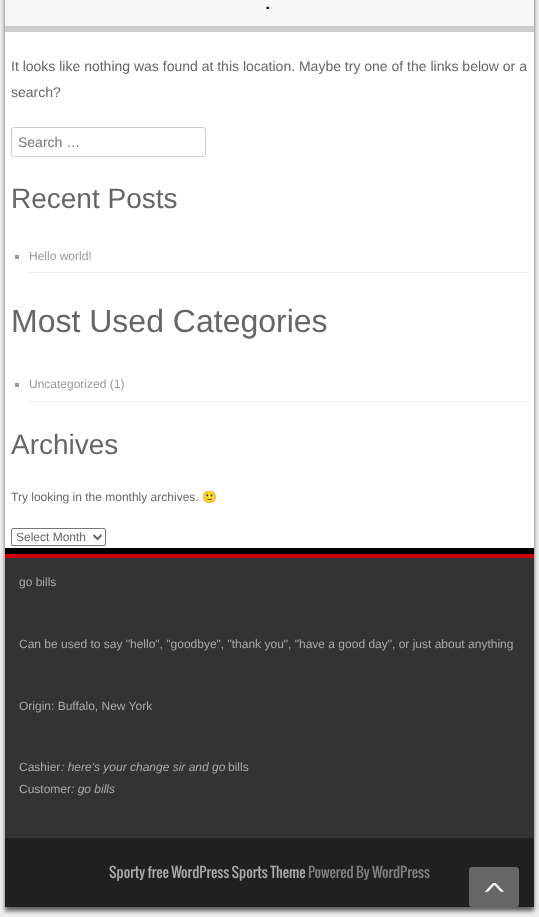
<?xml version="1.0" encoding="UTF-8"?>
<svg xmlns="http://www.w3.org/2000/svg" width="539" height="917">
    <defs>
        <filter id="blur1" x="-50%" y="-200%" width="200%" height="500%"><feGaussianBlur stdDeviation="2"/></filter>
    </defs>
    <rect width="100%" height="100%" fill="#EEEEEE"/>
    <rect x="5" y="-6" width="529" height="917" fill="#000000" fill-opacity="0.6" filter="url(#blur1)"/>
    <rect x="5" y="548" width="529" height="6" fill="#000000"/>
    <rect x="5" y="32" width="529" height="516" fill="#FFFFFF"/>
    <rect x="5" y="0" width="529" height="26" fill="#F7F7F7"/>
    <rect x="5" y="26" width="529" height="6" fill="#CCCCCC"/>
    <text x="266" y="9" word-spacing="4" font-family="Oswald" font-size="18" fill="#000000">.</text>
    <text font-family="Liberation Sans" font-size="14" fill="#666666">
        <tspan x="11" y="71">It looks like nothing was found at this location. Maybe try one of the links below or a</tspan>
        <tspan x="11" y="97">search?</tspan>
    </text>
    <rect x="11.5" y="127.5" width="194" height="29" rx="2.5" fill="none" stroke="#CCCCCC"/>
    <text x="18" y="147" font-family="Liberation Sans" font-size="14" fill="#757575">Search …</text>
    <text x="11" y="208" font-family="Liberation Sans" font-size="28" fill="#666666">Recent Posts</text>
    <rect x="29" y="272" width="499" height="1" fill="#EFEFEF"/>
    <rect x="15" y="255" width="4" height="4" fill="#999999"/>
    <text x="29" y="260" font-family="Liberation Sans" font-size="12" fill="#999999">Hello world!</text>
    <text x="11" y="332" font-family="Liberation Sans" font-size="32" fill="#666666">Most Used Categories</text>
    <rect x="29" y="401" width="499" height="1" fill="#EFEFEF"/>
    <rect x="15" y="383" width="4" height="4" fill="#999999"/>
    <text x="29" y="388" font-family="Liberation Sans" font-size="12" fill="#999999">Uncategorized (1)</text>
    <text x="11" y="454" font-family="Liberation Sans" font-size="28" fill="#666666">Archives</text>
    <text x="11" y="501" font-family="Liberation Sans" font-size="12" fill="#666666">Try looking in the monthly archives.</text>
    <text x="202" y="501" font-family="Noto Color Emoji" font-size="12" fill="#666666">🙂</text>
    <rect x="11.5" y="528.5" width="94" height="17" rx="1.5" fill="none" stroke="#767676"/>
    <path d="M 93.5 535 L 97.5 539 L 101.5 535" fill="none" stroke="#666666" stroke-width="2"/>
    <text x="16" y="541" font-family="Liberation Sans" font-size="12" fill="#666666">Select Month</text>
    <rect x="5" y="558" width="529" height="280" fill="#333333"/>
    <rect x="5" y="554" width="529" height="4" fill="#CC0000"/>
    <text x="19" y="586" font-family="Liberation Sans" font-size="12" fill="#AAAAAA">go bills</text>
    <text x="19" y="648" font-family="Liberation Sans" font-size="12" fill="#AAAAAA">Can be used to say "hello", "goodbye", "thank you", "have a good day", or just about anything</text>
    <text x="19" y="710" font-family="Liberation Sans" font-size="12" fill="#AAAAAA">Origin: Buffalo, New York</text>
    <text x="19" y="771" font-family="Liberation Sans" font-size="12" fill="#AAAAAA">Cashier</text>
    <text x="61" y="771" font-family="Liberation Sans" font-size="12" font-style="italic" fill="#AAAAAA">: here's your change sir and go</text>
    <text x="228" y="771" font-family="Liberation Sans" font-size="12" fill="#AAAAAA">bills</text>
    <text x="19" y="793" font-family="Liberation Sans" font-size="12" fill="#AAAAAA">Customer</text>
    <text x="71" y="793" font-family="Liberation Sans" font-size="12" font-style="italic" fill="#AAAAAA">: go bills</text>
    <rect x="5" y="838" width="529" height="69" fill="#202020"/>
    <text x="109" y="878" font-family="Oswald" font-size="14" fill="#AAAAAA">Sporty free WordPress Sports Theme</text>
    <text x="308" y="878" font-family="Oswald" font-size="14" fill="#808080">Powered By WordPress</text>
    <rect x="469" y="867" width="50" height="40" rx="3" fill="#666666"/>
    <image x="485" y="883" width="19" height="9" href="img_01.png"/>
</svg>
